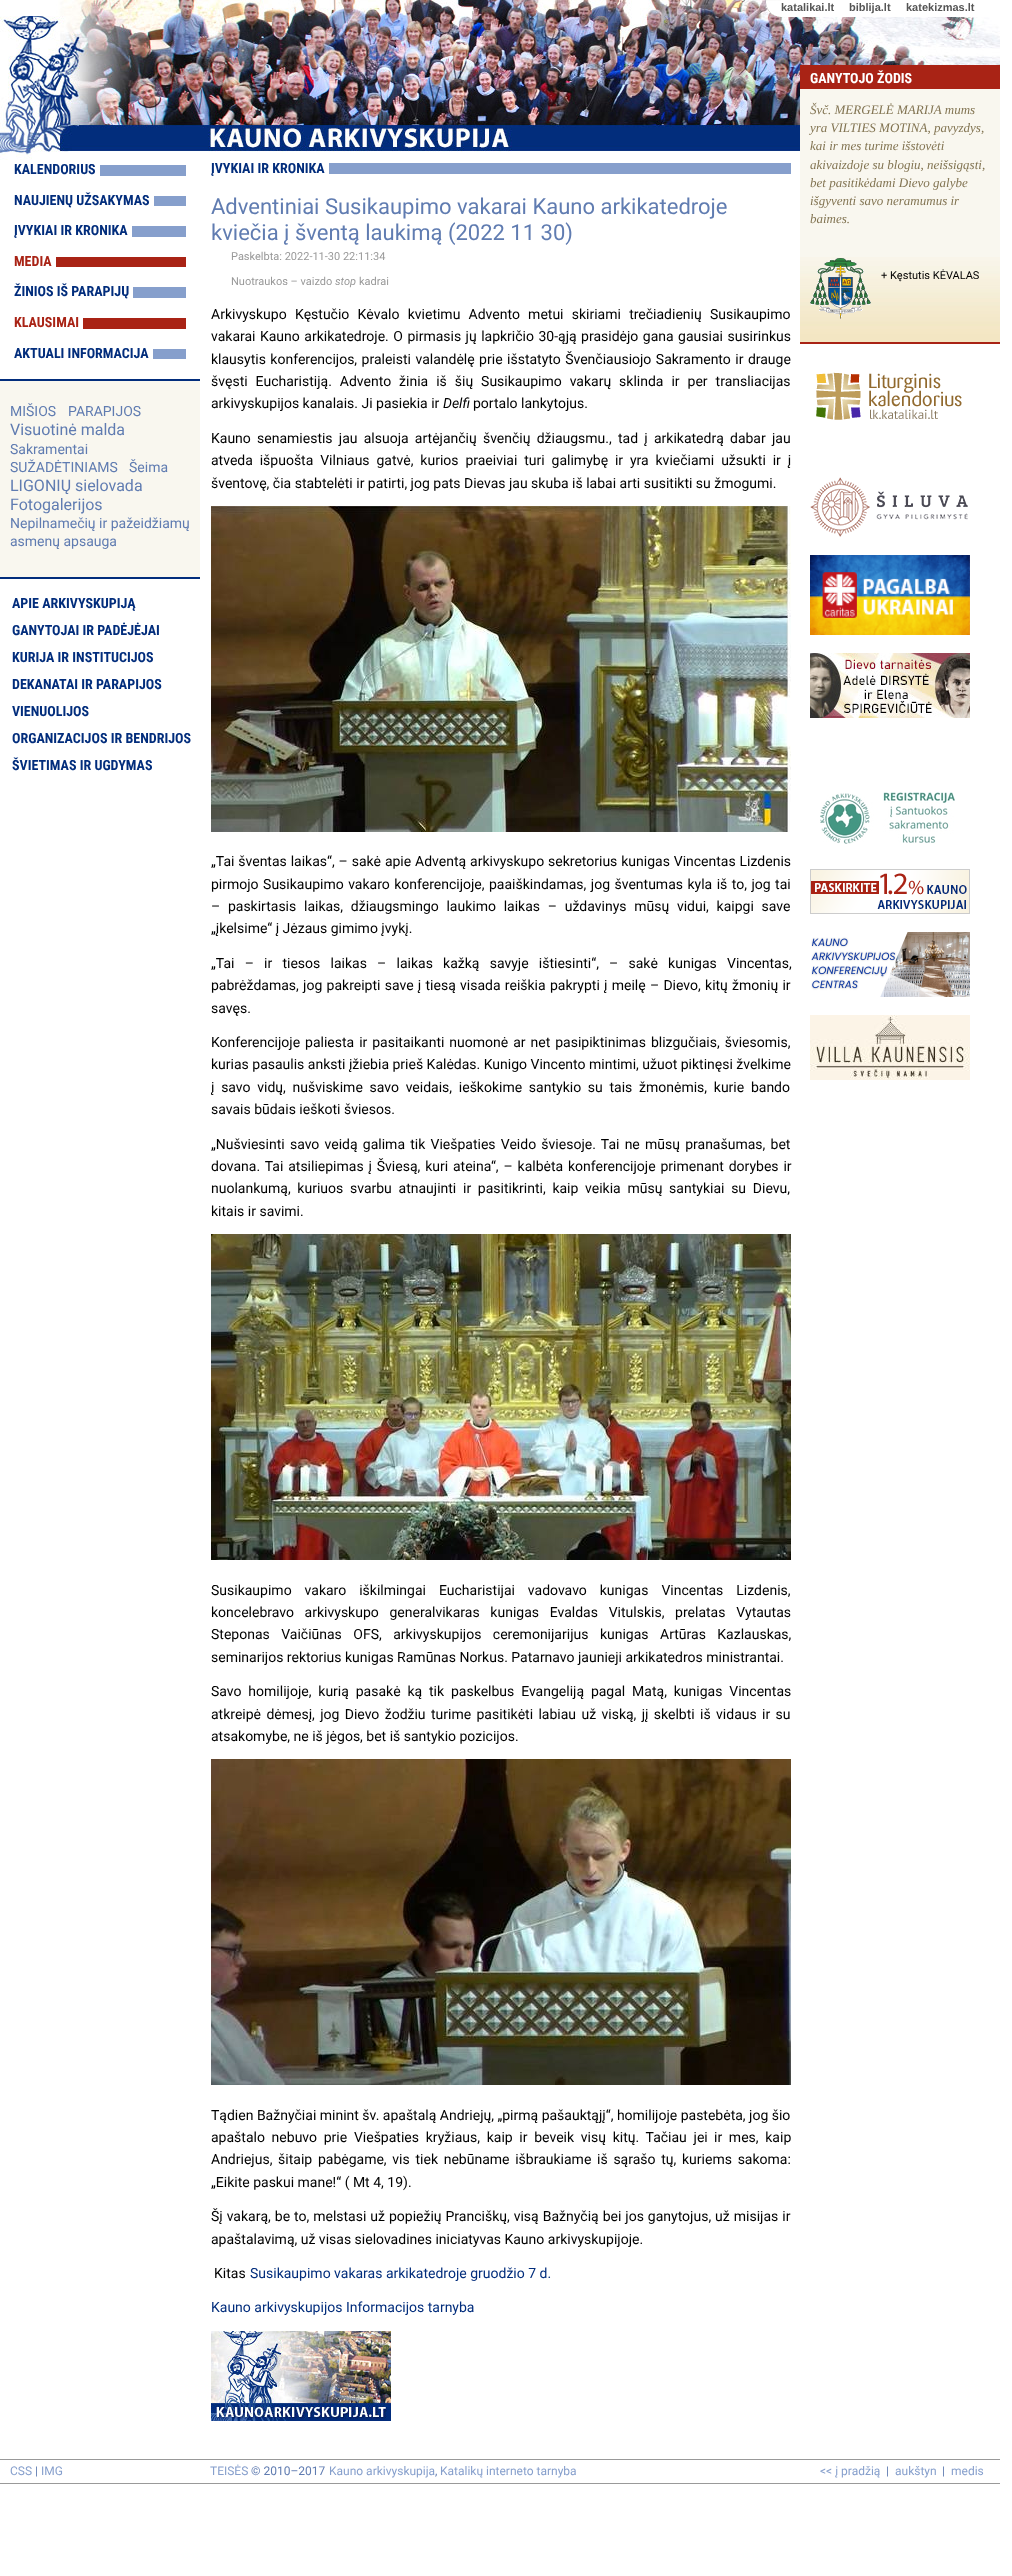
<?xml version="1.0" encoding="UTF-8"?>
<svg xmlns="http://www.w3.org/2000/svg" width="1012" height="2576">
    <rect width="100%" height="100%" fill="#FFFFFF"/>
    <image x="0" y="0" width="1000" height="160" href="img_01.png"/>
    <image x="766" y="0" width="15" height="17" href="img_02.png"/>
    <rect x="781" y="0" width="211" height="17" fill="#FFFFFF"/>
    <text x="781" y="11" font-family="Liberation Sans" font-size="11" font-weight="700" fill="#555555">katalikai.lt</text>
    <text x="849" y="11" font-family="Liberation Sans" font-size="11" font-weight="700" fill="#555555">biblija.lt</text>
    <text x="906" y="11" font-family="Liberation Sans" font-size="11" font-weight="700" fill="#555555">katekizmas.lt</text>
    <rect x="100" y="165" width="86" height="11" fill="#869FCC"/>
    <text x="14" y="174" font-family="Roboto Condensed" font-size="14" font-weight="700" fill="#022D7C">KALENDORIUS</text>
    <rect x="154" y="196" width="32" height="10" fill="#869FCC"/>
    <text x="14" y="205" font-family="Roboto Condensed" font-size="14" font-weight="700" fill="#022D7C">NAUJIENŲ UŽSAKYMAS</text>
    <rect x="132" y="226" width="54" height="11" fill="#869FCC"/>
    <text x="14" y="235" font-family="Roboto Condensed" font-size="14" font-weight="700" fill="#022D7C">ĮVYKIAI IR KRONIKA</text>
    <rect x="56" y="257" width="130" height="10" fill="#A92315"/>
    <text x="14" y="266" font-family="Roboto Condensed" font-size="14" font-weight="700" fill="#A92315">MEDIA</text>
    <rect x="133" y="287" width="53" height="11" fill="#869FCC"/>
    <text x="14" y="296" font-family="Roboto Condensed" font-size="14" font-weight="700" fill="#022D7C">ŽINIOS IŠ PARAPIJŲ</text>
    <rect x="83" y="318" width="103" height="11" fill="#A92315"/>
    <text x="14" y="327" font-family="Roboto Condensed" font-size="14" font-weight="700" fill="#A92315">KLAUSIMAI</text>
    <rect x="153" y="349" width="33" height="10" fill="#869FCC"/>
    <text x="14" y="358" font-family="Roboto Condensed" font-size="14" font-weight="700" fill="#022D7C">AKTUALI INFORMACIJA</text>
    <rect x="0" y="381" width="200" height="196" fill="#F9F7EF"/>
    <rect x="0" y="379" width="200" height="2" fill="#022D7C"/>
    <rect x="0" y="577" width="200" height="2" fill="#022D7C"/>
    <text x="10" y="416" font-family="Roboto" font-size="14" fill="#607CB1">MIŠIOS</text>
    <text x="68" y="416" font-family="Roboto" font-size="14" fill="#607CB1">PARAPIJOS</text>
    <text x="10" y="435" font-family="Roboto" font-size="16" fill="#607CB1">Visuotinė malda</text>
    <text font-family="Roboto" font-size="14" fill="#607CB1">
        <tspan x="10" y="454">Sakramentai</tspan>
        <tspan x="10" y="472">SUŽADĖTINIAMS</tspan>
    </text>
    <text x="129" y="472" font-family="Roboto" font-size="14" fill="#607CB1">Šeima</text>
    <text font-family="Roboto" font-size="16" fill="#607CB1">
        <tspan x="10" y="491">LIGONIŲ sielovada</tspan>
        <tspan x="10" y="510">Fotogalerijos</tspan>
    </text>
    <text font-family="Roboto" font-size="14" fill="#607CB1">
        <tspan x="10" y="528">Nepilnamečių ir pažeidžiamų</tspan>
        <tspan x="10" y="546">asmenų apsauga</tspan>
    </text>
    <text font-family="Roboto Condensed" font-size="14" font-weight="700" fill="#022D7C">
        <tspan x="12" y="608">APIE ARKIVYSKUPIJĄ</tspan>
        <tspan x="12" y="635">GANYTOJAI IR PADĖJĖJAI</tspan>
        <tspan x="12" y="662">KURIJA IR INSTITUCIJOS</tspan>
        <tspan x="12" y="689">DEKANATAI IR PARAPIJOS</tspan>
        <tspan x="12" y="716">VIENUOLIJOS</tspan>
        <tspan x="12" y="743">ORGANIZACIJOS IR BENDRIJOS</tspan>
        <tspan x="12" y="770">ŠVIETIMAS IR UGDYMAS</tspan>
    </text>
    <rect x="329" y="163" width="462" height="11" fill="#869FCC"/>
    <text x="211" y="173" font-family="Roboto Condensed" font-size="14" font-weight="700" fill="#022D7C">ĮVYKIAI IR KRONIKA</text>
    <text font-family="Roboto" font-size="22" fill="#607CB1">
        <tspan x="211" y="214">Adventiniai Susikaupimo vakarai Kauno arkikatedroje</tspan>
        <tspan x="211" y="240">kviečia į šventą laukimą (2022 11 30)</tspan>
    </text>
    <text x="231" y="260" font-family="Roboto" font-size="11" fill="#999999">Paskelbta: 2022-11-30 22:11:34</text>
    <text x="231" y="285" font-family="Roboto" font-size="11" fill="#999999">Nuotraukos – vaizdo</text>
    <text x="335" y="285" font-family="Roboto" font-size="11" font-style="italic" fill="#999999">stop</text>
    <text x="359" y="285" font-family="Roboto" font-size="11" fill="#999999">kadrai</text>
    <text font-family="Roboto" font-size="14" fill="#000000">
        <tspan x="211" y="319" word-spacing="4.75">Arkivyskupo Kęstučio Kėvalo kvietimu Advento metui skiriami trečiadienių Susikaupimo</tspan>
        <tspan x="211" y="341" word-spacing="1">vakarai Kauno arkikatedroje. O pirmasis jų lapkričio 30-ąją prasidėjo gana gausiai susirinkus</tspan>
        <tspan x="211" y="364" word-spacing="1">klausytis konferencijos, praleisti valandėlę prie išstatyto Švenčiausiojo Sakramento ir drauge</tspan>
        <tspan x="211" y="386" word-spacing="4.5">švęsti Eucharistiją. Advento žinia iš šių Susikaupimo vakarų sklinda ir per transliacijas</tspan>
        <tspan x="211" y="408">arkivyskupijos kanalais. Ji pasiekia ir</tspan>
    </text>
    <text x="443" y="408" font-family="Roboto" font-size="14" font-style="italic" fill="#000000">Delfi</text>
    <text x="473" y="408" font-family="Roboto" font-size="14" fill="#000000">portalo lankytojus.</text>
    <text font-family="Roboto" font-size="14" fill="#000000">
        <tspan x="211" y="443" word-spacing="2.75">Kauno senamiestis jau alsuoja artėjančių švenčių džiaugsmu., tad į arkikatedrą dabar jau</tspan>
        <tspan x="211" y="465" word-spacing="3.4">atveda išpuošta Vilniaus gatvė, kurios praeiviai turi galimybę ir yra kviečiami užsukti ir į</tspan>
        <tspan x="211" y="488">šventovę, čia stabtelėti ir patirti, jog pats Dievas jau skuba iš labai arti susitikti su žmogumi.</tspan>
    </text>
    <image x="211" y="506" width="580" height="326" href="img_03.png"/>
    <text font-family="Roboto" font-size="14" fill="#000000">
        <tspan x="211" y="866" word-spacing="0.4">„Tai šventas laikas“, – sakė apie Adventą arkivyskupo sekretorius kunigas Vincentas Lizdenis</tspan>
        <tspan x="211" y="889" word-spacing="1">pirmojo Susikaupimo vakaro konferencijoje, paaiškindamas, jog šventumas kyla iš to, jog tai</tspan>
        <tspan x="211" y="911" word-spacing="4.25">– paskirtasis laikas, džiaugsmingo laukimo laikas – uždavinys mūsų vidui, kaipgi save</tspan>
        <tspan x="211" y="933">„įkelsime“ į Jėzaus gimimo įvykį.</tspan>
    </text>
    <text font-family="Roboto" font-size="14" fill="#000000">
        <tspan x="211" y="968" word-spacing="6.75">„Tai – ir tiesos laikas – laikas kažką savyje ištiesinti“, – sakė kunigas Vincentas,</tspan>
        <tspan x="211" y="990" word-spacing="0.8">pabrėždamas, jog pakreipti save į tiesą visada reiškia pakrypti į meilę – Dievo, kitų žmonių ir</tspan>
        <tspan x="211" y="1013">savęs.</tspan>
    </text>
    <text font-family="Roboto" font-size="14" fill="#000000">
        <tspan x="211" y="1047" word-spacing="1.5">Konferencijoje paliesta ir pasitaikanti nuomonė ar net pasipiktinimas blizgučiais, šviesomis,</tspan>
        <tspan x="211" y="1069">kurias pasaulis anksti įžiebia prieš Kalėdas. Kunigo Vincento mintimi, užuot piktinęsi žvelkime</tspan>
        <tspan x="211" y="1092" word-spacing="3.25">į savo vidų, nušviskime savo veidais, ieškokime santykio su tais žmonėmis, kurie bando</tspan>
        <tspan x="211" y="1114">savais būdais ieškoti šviesos.</tspan>
    </text>
    <text font-family="Roboto" font-size="14" fill="#000000">
        <tspan x="211" y="1149" word-spacing="1.75">„Nušviesinti savo veidą galima tik Viešpaties Veido šviesoje. Tai ne mūsų pranašumas, bet</tspan>
        <tspan x="211" y="1171" word-spacing="1.4">dovana. Tai atsiliepimas į Šviesą, kuri ateina“, – kalbėta konferencijoje primenant dorybes ir</tspan>
        <tspan x="211" y="1193" word-spacing="3.25">nuolankumą, kuriuos svarbu atnaujinti ir pasitikrinti, kaip veikia mūsų santykiai su Dievu,</tspan>
        <tspan x="211" y="1216">kitais ir savimi.</tspan>
    </text>
    <image x="211" y="1234" width="580" height="326" href="img_04.png"/>
    <text font-family="Roboto" font-size="14" fill="#000000">
        <tspan x="211" y="1595" word-spacing="9.5">Susikaupimo vakaro iškilmingai Eucharistijai vadovavo kunigas Vincentas Lizdenis,</tspan>
        <tspan x="211" y="1617" word-spacing="7.25">koncelebravo arkivyskupo generalvikaras kunigas Evaldas Vitulskis, prelatas Vytautas</tspan>
        <tspan x="211" y="1639" word-spacing="8">Steponas Vaičiūnas OFS, arkivyskupijos ceremonijarijus kunigas Artūras Kazlauskas,</tspan>
        <tspan x="211" y="1662">seminarijos rektorius kunigas Ramūnas Norkus. Patarnavo jaunieji arkikatedros ministrantai.</tspan>
    </text>
    <text font-family="Roboto" font-size="14" fill="#000000">
        <tspan x="211" y="1696" word-spacing="3.4">Savo homilijoje, kurią pasakė ką tik paskelbus Evangeliją pagal Matą, kunigas Vincentas</tspan>
        <tspan x="211" y="1719" word-spacing="1.9">atkreipė dėmesį, jog Dievo žodžiu turime pasitikėti labiau už viską, jį skelbti iš vidaus ir su</tspan>
        <tspan x="211" y="1741">atsakomybe, ne iš jėgos, bet iš santykio pozicijos.</tspan>
    </text>
    <image x="211" y="1759" width="580" height="326" href="img_05.png"/>
    <text font-family="Roboto" font-size="14" fill="#000000">
        <tspan x="211" y="2120">Tądien Bažnyčiai minint šv. apaštalą Andriejų, „pirmą pašauktąjį“, homilijoje pastebėta, jog šio</tspan>
        <tspan x="211" y="2142" word-spacing="3.25">apaštalo nebuvo prie Viešpaties kryžiaus, kaip ir beveik visų kitų. Tačiau jei</tspan>
    </text>
    <text x="714" y="2142" word-spacing="3.25" font-family="Roboto" font-size="14" fill="#000000">ir mes, kaip</text>
    <text font-family="Roboto" font-size="14" fill="#000000">
        <tspan x="211" y="2164" word-spacing="2.25">Andriejus, šitaip pabėgame, vis tiek nebūname išbraukiame iš sąrašo tų, kuriems sakoma:</tspan>
        <tspan x="211" y="2187">„Eikite paskui mane!“ ( Mt 4, 19).</tspan>
    </text>
    <text font-family="Roboto" font-size="14" fill="#000000">
        <tspan x="211" y="2221" word-spacing="0.5">Šį vakarą, be to, melstasi už popiežių Pranciškų, visą Bažnyčią bei jos ganytojus, už misijas ir</tspan>
        <tspan x="211" y="2244">apaštalavimą, už visas sielovadines iniciatyvas Kauno arkivyskupijoje.</tspan>
    </text>
    <text x="214" y="2278" font-family="Roboto" font-size="14" fill="#000000">Kitas</text>
    <text x="250" y="2278" font-family="Roboto" font-size="14" fill="#022D7C">Susikaupimo vakaras arkikatedroje gruodžio 7 d.</text>
    <text x="211" y="2312" font-family="Roboto" font-size="14" fill="#022D7C">Kauno arkivyskupijos Informacijos tarnyba</text>
    <image x="211" y="2331" width="180" height="90" href="img_06.png"/>
    <rect x="800" y="89" width="200" height="168" fill="#F9F7EF"/>
    <image x="800" y="257" width="200" height="85" href="img_07.png"/>
    <rect x="800" y="342" width="200" height="2" fill="#A92315"/>
    <rect x="800" y="65" width="200" height="24" fill="#A92315"/>
    <text x="810" y="83" font-family="Roboto Condensed" font-size="14" font-weight="700" fill="#FFFFFF">GANYTOJO ŽODIS</text>
    <text font-family="Liberation Serif" font-size="13" font-style="italic" fill="#827452">
        <tspan x="810" y="114">Švč. MERGELĖ MARIJA mums</tspan>
        <tspan x="810" y="132">yra VILTIES MOTINA, pavyzdys,</tspan>
        <tspan x="810" y="150">kai ir mes turime išstovėti</tspan>
        <tspan x="810" y="169">akivaizdoje su blogiu, neišsigąsti,</tspan>
        <tspan x="810" y="187">bet pasitikėdami Dievo galybe</tspan>
        <tspan x="810" y="205">išgyventi savo neramumus ir</tspan>
        <tspan x="810" y="223">baimes.</tspan>
    </text>
    <image x="810" y="258" width="61" height="61" href="img_08.png"/>
    <text x="881" y="279" font-family="Roboto" font-size="11" fill="#000000">+ Kęstutis KĖVALAS</text>
    <image x="816" y="372" width="146" height="48" href="img_09.png"/>
    <image x="810" y="477" width="158" height="60" href="img_10.png"/>
    <image x="810" y="555" width="160" height="80" href="img_11.png"/>
    <image x="810" y="653" width="160" height="65" href="img_12.png"/>
    <image x="820" y="792" width="135" height="52" href="img_13.png"/>
    <image x="810" y="869" width="160" height="45" href="img_14.png"/>
    <image x="811" y="932" width="159" height="65" href="img_15.png"/>
    <image x="810" y="1015" width="160" height="65" href="img_16.png"/>
    <rect x="0" y="2459" width="1000" height="1" fill="#999999"/>
    <rect x="0" y="2483" width="1000" height="1" fill="#999999"/>
    <text x="10" y="2475" font-family="Roboto" font-size="12" fill="#869FCC">CSS</text>
    <text x="35" y="2475" font-family="Roboto" font-size="12" fill="#607CB1">|</text>
    <text x="41" y="2475" font-family="Roboto" font-size="12" fill="#869FCC">IMG</text>
    <text x="210" y="2475" font-family="Roboto" font-size="12" fill="#869FCC">TEISĖS</text>
    <text x="251" y="2475" font-family="Roboto" font-size="12" fill="#607CB1">© 2010–2017</text>
    <text x="329" y="2475" font-family="Roboto" font-size="12" fill="#869FCC">Kauno arkivyskupija</text>
    <text x="435" y="2475" font-family="Roboto" font-size="12" fill="#607CB1">,</text>
    <text x="440" y="2475" font-family="Roboto" font-size="12" fill="#869FCC">Katalikų interneto tarnyba</text>
    <text x="820" y="2475" font-family="Roboto" font-size="12" fill="#869FCC">&lt;&lt; į pradžią</text>
    <text x="886" y="2475" font-family="Roboto" font-size="12" fill="#607CB1">|</text>
    <text x="895" y="2475" font-family="Roboto" font-size="12" fill="#869FCC">aukštyn</text>
    <text x="942" y="2475" font-family="Roboto" font-size="12" fill="#607CB1">|</text>
    <text x="951" y="2475" font-family="Roboto" font-size="12" fill="#869FCC">medis</text>
</svg>
